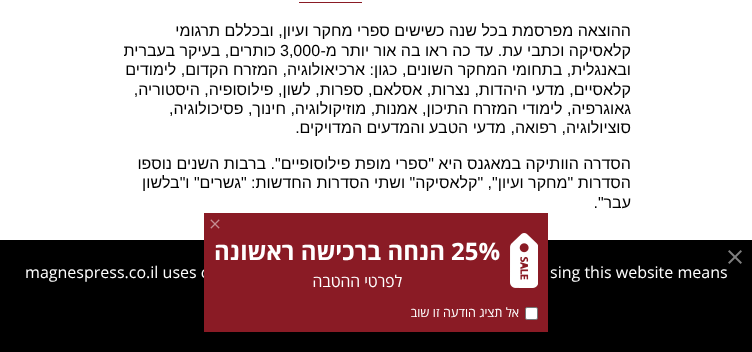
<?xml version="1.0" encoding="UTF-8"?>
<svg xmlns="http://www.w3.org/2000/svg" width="752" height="352">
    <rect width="100%" height="100%" fill="#FFFFFF"/>
    <rect x="299" y="2" width="63" height="1" fill="#8A1B25"/>
    <text font-family="Liberation Sans" font-size="16" direction="rtl" fill="#000000">
        <tspan x="631" y="36">ההוצאה מפרסמת בכל שנה כשישים ספרי מחקר ועיון, ובכללם תרגומי</tspan>
        <tspan x="631" y="56">קלאסיקה וכתבי עת. עד כה ראו בה אור יותר מ-</tspan>
    </text>
    <text x="280" y="56" font-family="Liberation Sans" font-size="16" fill="#000000">3,000</text>
    <text x="276" y="56" font-family="Liberation Sans" font-size="16" direction="rtl" fill="#000000">כותרים, בעיקר בעברית</text>
    <text font-family="Liberation Sans" font-size="16" direction="rtl" fill="#000000">
        <tspan x="631" y="75">ובאנגלית, בתחומי המחקר השונים, כגון: ארכיאולוגיה, המזרח הקדום, לימודים</tspan>
        <tspan x="631" y="95">קלאסיים, מדעי היהדות, נצרות, אסלאם, ספרות, לשון, פילוסופיה, היסטוריה,</tspan>
        <tspan x="631" y="114">גאוגרפיה, לימודי המזרח התיכון, אמנות, מוזיקולוגיה, חינוך, פסיכולוגיה,</tspan>
        <tspan x="631" y="133">סוציולוגיה, רפואה, מדעי הטבע והמדעים המדויקים.</tspan>
    </text>
    <text font-family="Liberation Sans" font-size="16" direction="rtl" fill="#000000">
        <tspan x="631" y="169">הסדרה הוותיקה במאגנס היא "ספרי מופת פילוסופיים". ברבות השנים נוספו</tspan>
        <tspan x="631" y="188">הסדרות "מחקר ועיון", "קלאסיקה" ושתי הסדרות החדשות: "גשרים" ו"בלשון</tspan>
        <tspan x="631" y="208">עבר".</tspan>
    </text>
    <rect x="0" y="240" width="752" height="112" fill="#000000"/>
    <text x="25" y="278" font-family="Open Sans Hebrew" font-size="16" fill="#FFFFFF">magnespress.co.il uses c</text>
    <rect x="204" y="213" width="344" height="119" fill="#8A1B25"/>
    <image x="210" y="219" width="10" height="10" href="img_01.png"/>
    <image x="510" y="233" width="28" height="55" href="img_02.png"/>
    <text x="451" y="260" font-family="Open Sans Hebrew" font-size="24" font-weight="700" fill="#FFFFFF">25%</text>
    <text x="445" y="260" font-family="Open Sans Hebrew" font-size="24" font-weight="700" direction="rtl" fill="#FFFFFF">הנחה ברכישה ראשונה</text>
    <text x="402" y="287" font-family="Open Sans Hebrew" font-size="16" direction="rtl" fill="#FFFFFF">לפרטי ההטבה</text>
    <rect x="525.5" y="307.5" width="12" height="12" rx="1.5" fill="#FFFFFF" stroke="#767676"/>
    <text x="519" y="317" font-family="Open Sans Hebrew" font-size="12.75" direction="rtl" fill="#FFFFFF">אל תציג הודעה זו שוב</text>
    <image x="728" y="250" width="14" height="14" href="img_03.png"/>
    <text x="550" y="278" font-family="Open Sans Hebrew" font-size="16" fill="#FFFFFF">sing this website means</text>
</svg>
